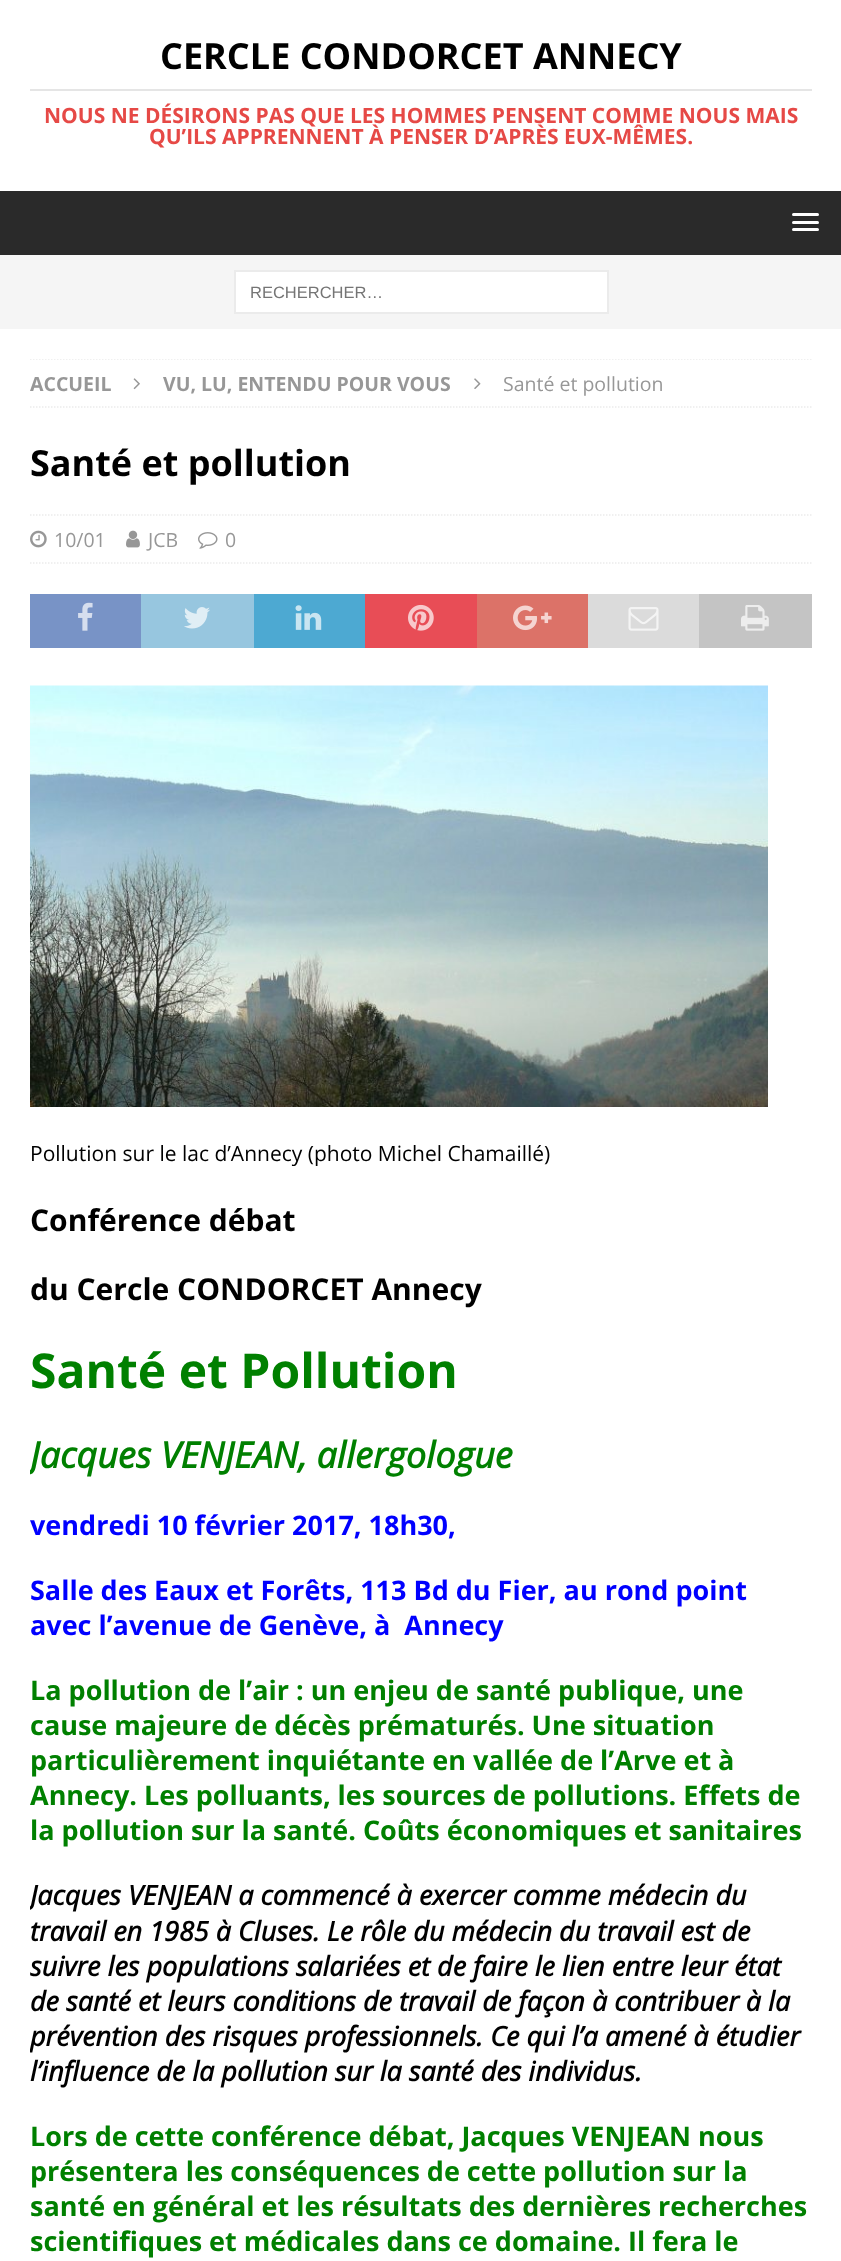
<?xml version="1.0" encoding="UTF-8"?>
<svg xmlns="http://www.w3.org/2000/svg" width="841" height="2261">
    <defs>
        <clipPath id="clip1"><rect x="30" y="359" width="782" height="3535"/></clipPath>
    </defs>
    <rect width="100%" height="100%" fill="#FFFFFF"/>
    <text x="160" y="69" font-family="Open Sans" font-size="36" font-weight="700" fill="#000000">CERCLE CONDORCET ANNECY</text>
    <rect x="30" y="89" width="782" height="2" fill="#E5E5E5"/>
    <text x="44" y="123" font-family="Open Sans" font-size="21" font-weight="700" fill="#E64946">NOUS NE DÉSIRONS PAS QUE LES HOMMES PENSENT COMME NOUS MAIS</text>
    <text x="149" y="144" font-family="Open Sans" font-size="21" font-weight="700" fill="#E64946">QU’ILS APPRENNENT À PENSER D’APRÈS EUX-MÊMES.</text>
    <rect x="0" y="191" width="841" height="64" fill="#2A2A2A"/>
    <rect x="792" y="213" width="27" height="3" rx="1.5" fill="#FFFFFF"/>
    <rect x="792" y="221" width="27" height="3" rx="1.5" fill="#FFFFFF"/>
    <rect x="792" y="228" width="27" height="3" rx="1.5" fill="#FFFFFF"/>
    <rect x="0" y="255" width="841" height="74" fill="#F5F5F5"/>
    <rect x="235" y="271" width="373" height="42" fill="#FFFFFF" stroke="#EBEBEB" stroke-width="2"/>
    <text x="250" y="298" font-family="Liberation Sans" font-size="16.5" fill="#757575">RECHERCHER…</text>
    <g clip-path="url(#clip1)">
        <path d="M 30 359 H 811.5" fill="none" stroke="#EBEBEB" stroke-width="1.5" stroke-dasharray="1.5 1.5"/>
    </g>
    <path d="M 30 407 H 811.5" fill="none" stroke="#EBEBEB" stroke-width="1.5" stroke-dasharray="1.5 1.5"/>
    <text x="30" y="391" font-family="Open Sans" font-size="19.5" font-weight="700" fill="#979797">ACCUEIL</text>
    <image x="133" y="378" width="7" height="12" href="img_01.png"/>
    <text x="163" y="391" font-family="Open Sans" font-size="19.5" font-weight="700" fill="#979797">VU, LU, ENTENDU POUR VOUS</text>
    <image x="474" y="378" width="7" height="11" href="img_02.png"/>
    <text x="503" y="391" font-family="Open Sans" font-size="19.5" fill="#979797">Santé et pollution</text>
    <text x="30" y="476" font-family="Open Sans" font-size="36" font-weight="700" fill="#000000">Santé et pollution</text>
    <path d="M 30 515 H 811.5" fill="none" stroke="#EBEBEB" stroke-width="1.5" stroke-dasharray="1.5 1.5"/>
    <path d="M 30 563 H 811.5" fill="none" stroke="#EBEBEB" stroke-width="1.5" stroke-dasharray="1.5 1.5"/>
    <image x="30" y="530" width="17" height="18" href="img_03.png"/>
    <text x="54" y="547" font-family="Open Sans" font-size="19.5" fill="#979797">10/01</text>
    <image x="126" y="530" width="14" height="18" href="img_04.png"/>
    <text x="148" y="547" font-family="Open Sans" font-size="19.5" fill="#979797">JCB</text>
    <image x="198" y="532" width="20" height="17" href="img_05.png"/>
    <text x="225" y="547" font-family="Open Sans" font-size="19.5" fill="#979797">0</text>
    <rect x="30" y="594" width="111" height="54" fill="#7893C6"/>
    <image x="78" y="602" width="15" height="29" href="img_06.png"/>
    <rect x="141" y="594" width="113" height="54" fill="#97C6DF"/>
    <image x="184" y="607" width="26" height="22" href="img_07.png"/>
    <rect x="254" y="594" width="111" height="54" fill="#4DA9D2"/>
    <image x="295" y="605" width="27" height="25" href="img_08.png"/>
    <rect x="365" y="594" width="112" height="54" fill="#E84D56"/>
    <image x="408" y="604" width="26" height="27" href="img_09.png"/>
    <rect x="477" y="594" width="111" height="54" fill="#DC7268"/>
    <image x="513" y="605" width="39" height="26" href="img_10.png"/>
    <rect x="588" y="594" width="111" height="54" fill="#DBDBDB"/>
    <image x="628" y="607" width="31" height="24" href="img_11.png"/>
    <rect x="699" y="594" width="113" height="54" fill="#C4C4C4"/>
    <image x="741" y="605" width="28" height="26" href="img_12.png"/>
    <image x="30" y="685" width="738" height="422" href="img_13.png"/>
    <text x="30" y="1161" font-family="Open Sans" font-size="21" fill="#000000">Pollution sur le lac d’Annecy (photo Michel Chamaillé)</text>
    <text x="30" y="1231" font-family="Open Sans" font-size="30" font-weight="700" fill="#000000">Conférence débat</text>
    <text x="30" y="1300" font-family="Open Sans" font-size="30" font-weight="700" fill="#000000">du Cercle CONDORCET Annecy</text>
    <text x="30" y="1388" font-family="Open Sans" font-size="48" font-weight="700" fill="#008000">Santé et Pollution</text>
    <g clip-path="url(#clip1)">
        <text x="30" y="1468" font-family="Open Sans" font-size="36" font-weight="700" font-style="italic" fill="#008000">Jacques VENJEAN, allergologue</text>
    </g>
    <text x="30" y="1535" font-family="Open Sans" font-size="27" font-weight="700" fill="#0000FF">vendredi 10 février 2017, 18h30,</text>
    <text font-family="Open Sans" font-size="27" font-weight="700" fill="#0000FF" xml:space="preserve"><tspan x="30" y="1600">Salle des Eaux et Forêts, 113 Bd du Fier, au rond point</tspan><tspan x="30" y="1635">avec l’avenue de Genève, à  Annecy</tspan></text>
    <text font-family="Open Sans" font-size="27" font-weight="700" fill="#008000">
        <tspan x="30" y="1700">La pollution de l’air : un enjeu de santé publique, une</tspan>
        <tspan x="30" y="1735">cause majeure de décès prématurés. Une situation</tspan>
        <tspan x="30" y="1770">particulièrement inquiétante en vallée de l’Arve et à</tspan>
        <tspan x="30" y="1805">Annecy. Les polluants, les sources de pollutions. Effets de</tspan>
        <tspan x="30" y="1840">la pollution sur la santé. Coûts économiques et sanitaires</tspan>
    </text>
    <g clip-path="url(#clip1)">
        <text x="30" y="1905" font-family="Open Sans" font-size="27" font-weight="700" font-style="italic" fill="#000000">Jacques VENJEAN a commencé à exercer comme médecin du</text>
    </g>
    <text font-family="Open Sans" font-size="27" font-weight="700" font-style="italic" fill="#000000">
        <tspan x="30" y="1941">travail en 1985 à Cluses. Le rôle du médecin du travail est de</tspan>
        <tspan x="30" y="1976">suivre les populations salariées et de faire le lien entre leur état</tspan>
        <tspan x="30" y="2011">de santé et leurs conditions de travail de façon à contribuer à la</tspan>
    </text>
    <g clip-path="url(#clip1)">
        <text x="30" y="2046" font-family="Open Sans" font-size="27" font-weight="700" font-style="italic" fill="#000000">prévention des risques professionnels. Ce qui l’a amené à étudier</text>
    </g>
    <text x="30" y="2081" font-family="Open Sans" font-size="27" font-weight="700" font-style="italic" fill="#000000">l’influence de la pollution sur la santé des individus.</text>
    <text font-family="Open Sans" font-size="27" font-weight="700" fill="#008000">
        <tspan x="30" y="2146">Lors de cette conférence débat, Jacques VENJEAN nous</tspan>
        <tspan x="30" y="2181">présentera les conséquences de cette pollution sur la</tspan>
        <tspan x="30" y="2216">santé en général et les résultats des dernières recherches</tspan>
        <tspan x="30" y="2251">scientifiques et médicales dans ce domaine. Il fera le</tspan>
    </text>
</svg>
